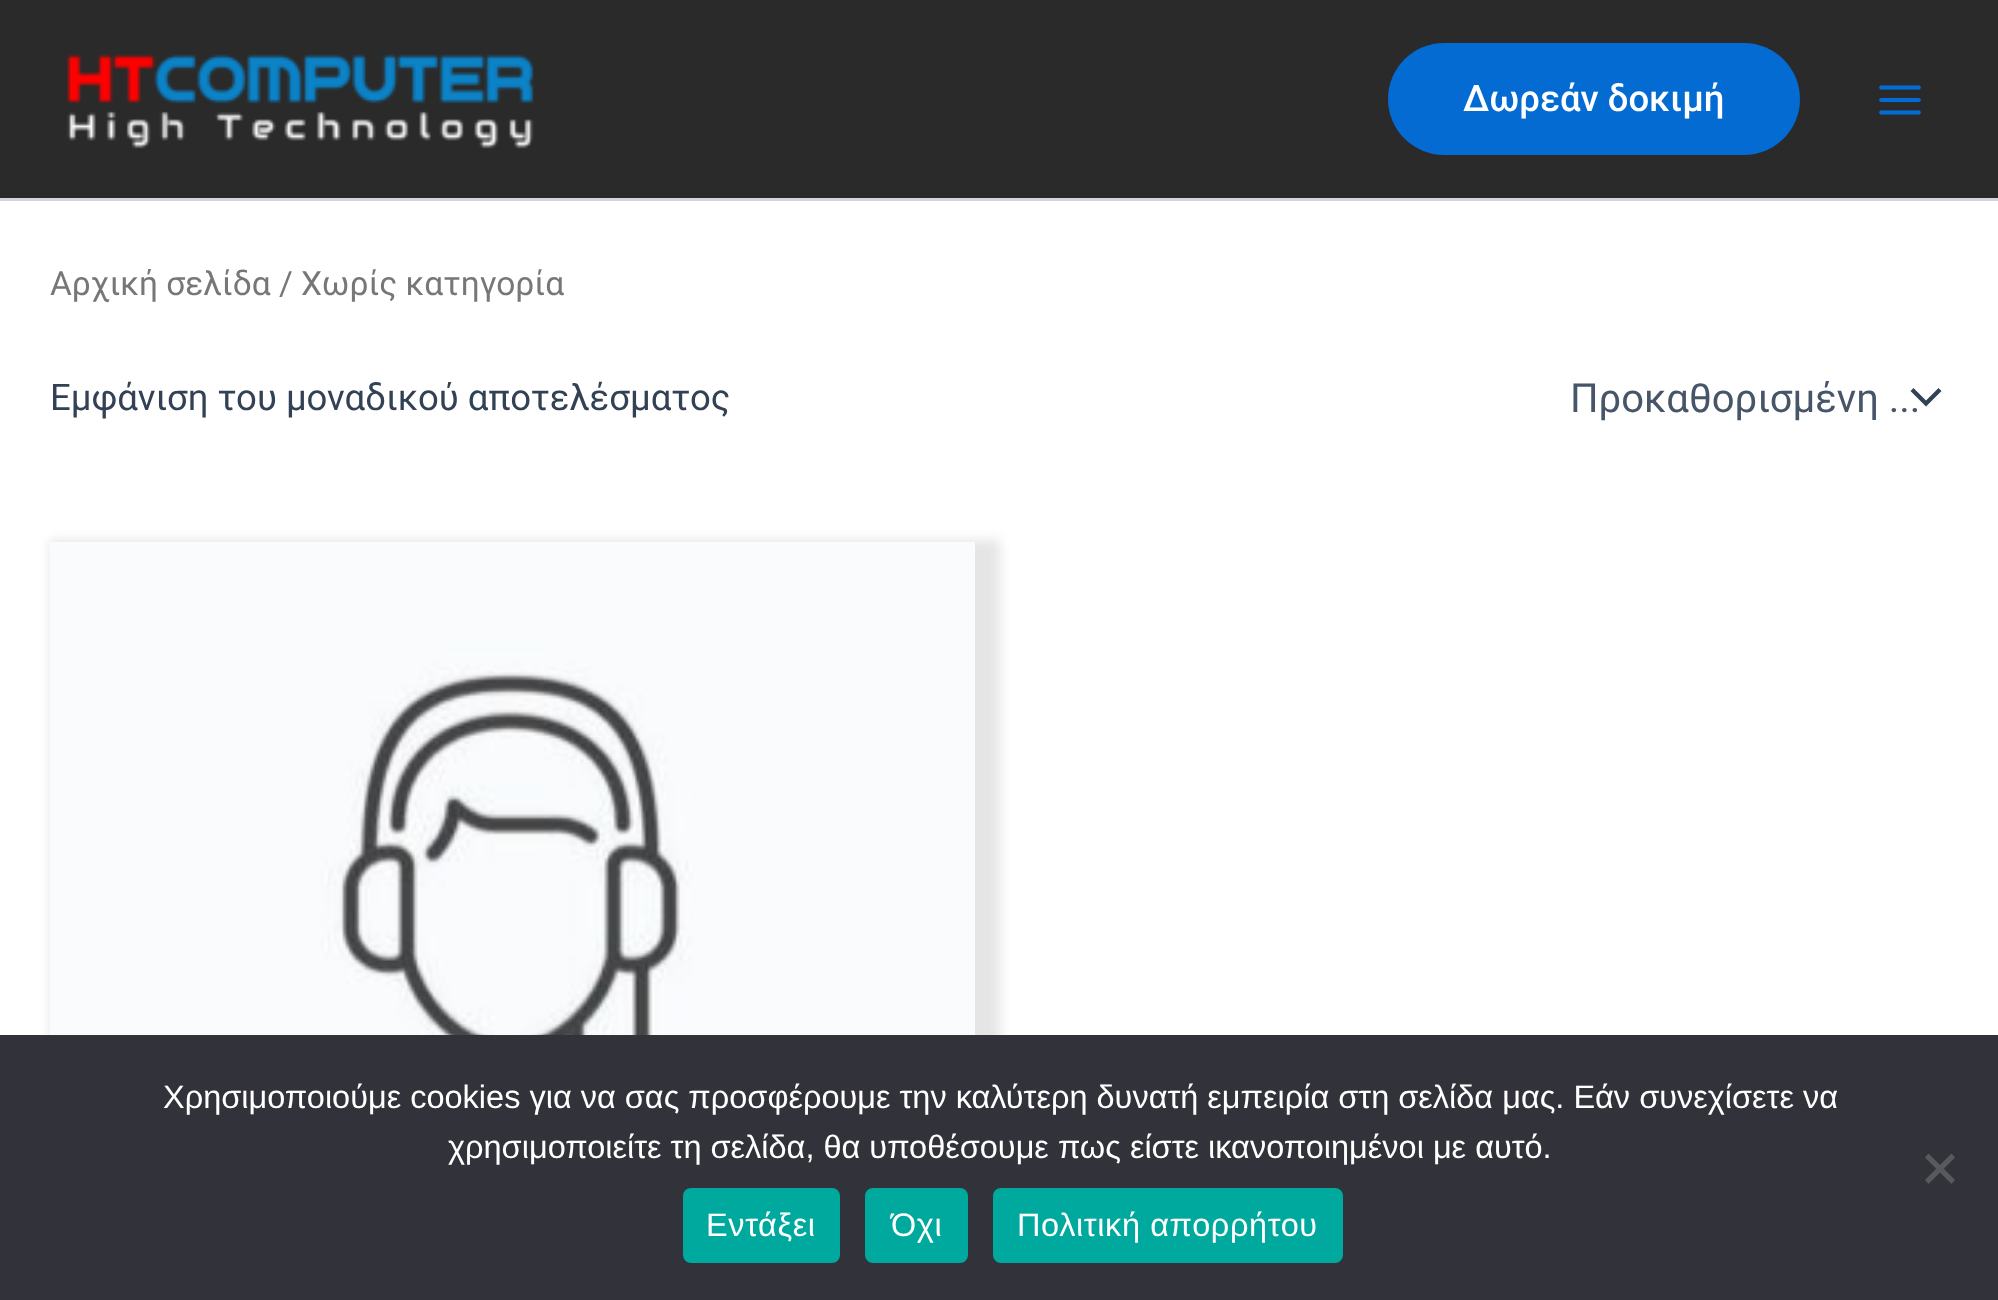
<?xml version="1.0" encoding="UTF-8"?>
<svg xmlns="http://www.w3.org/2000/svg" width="1998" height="1300">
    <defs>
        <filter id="blur1" x="-50%" y="-200%" width="200%" height="500%"><feGaussianBlur stdDeviation="6"/></filter>
    </defs>
    <rect width="100%" height="100%" fill="#FFFFFF"/>
    <rect x="0" y="0" width="1998" height="198" fill="#2A2A2A"/>
    <rect x="0" y="198" width="1998" height="3" fill="#D1D5DB"/>
    <image x="66" y="54" width="468" height="95" href="img_01.png"/>
    <rect x="1388" y="43" width="412" height="112" rx="56" fill="#046BD2"/>
    <text x="1463" y="111" font-family="Roboto" font-size="36.5" font-weight="500" fill="#FFFFFF">Δωρεάν δοκιμή</text>
    <image x="1879" y="85" width="42" height="30" href="img_02.png"/>
    <text x="50" y="295" font-family="Roboto" font-size="33.5" fill="#777777">Αρχική σελίδα / Χωρίς κατηγορία</text>
    <text x="50" y="410" font-family="Roboto" font-size="36.5" fill="#334155">Εμφάνιση του μοναδικού αποτελέσματος</text>
    <path d="M 1910.5 391 L 1926 406.5 L 1941.5 391 L 1938.5 388 L 1926 400.5 L 1913.5 388 Z" fill="#334155"/>
    <text x="1570" y="412" font-family="Roboto" font-size="40" fill="#475569">Προκαθορισμένη ...</text>
    <rect x="50" y="540" width="950" height="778" fill="#000000" fill-opacity="0.1" filter="url(#blur1)"/>
    <image x="50" y="542" width="925" height="493" href="img_03.png"/>
    <rect x="0" y="1035" width="1998" height="265" fill="#32323A"/>
    <text x="163" y="1108" font-family="Liberation Sans" font-size="32.5" fill="#FFFFFF">Χρησιμοποιούμε cookies για να σας προσφέρουμε την καλύτερη δυνατή εμπειρία στη σελίδα μας. Εάν συνεχίσετε να</text>
    <text x="448" y="1158" font-family="Liberation Sans" font-size="32.5" fill="#FFFFFF">χρησιμοποιείτε τη σελίδα, θα υποθέσουμε πως είστε ικανοποιημένοι με αυτό.</text>
    <path d="M 1951.5 1153.5 L 1955 1157.5 L 1928.5 1184 L 1925 1180 Z" fill="#59595D"/>
    <path d="M 1925 1157.5 L 1928.5 1153.5 L 1955 1180 L 1951.5 1184 Z" fill="#59595D"/>
    <rect x="683" y="1188" width="157" height="75" rx="8" fill="#00A99D"/>
    <text x="706" y="1236" font-family="Liberation Sans" font-size="32.5" letter-spacing="0.6" fill="#FFFFFF">Εντάξει</text>
    <rect x="865" y="1188" width="103" height="75" rx="8" fill="#00A99D"/>
    <text x="891" y="1236" font-family="Liberation Sans" font-size="32.5" letter-spacing="0.6" fill="#FFFFFF">Όχι</text>
    <rect x="993" y="1188" width="350" height="75" rx="8" fill="#00A99D"/>
    <text x="1017" y="1236" font-family="Liberation Sans" font-size="32.5" letter-spacing="0.6" fill="#FFFFFF">Πολιτική απορρήτου</text>
</svg>
